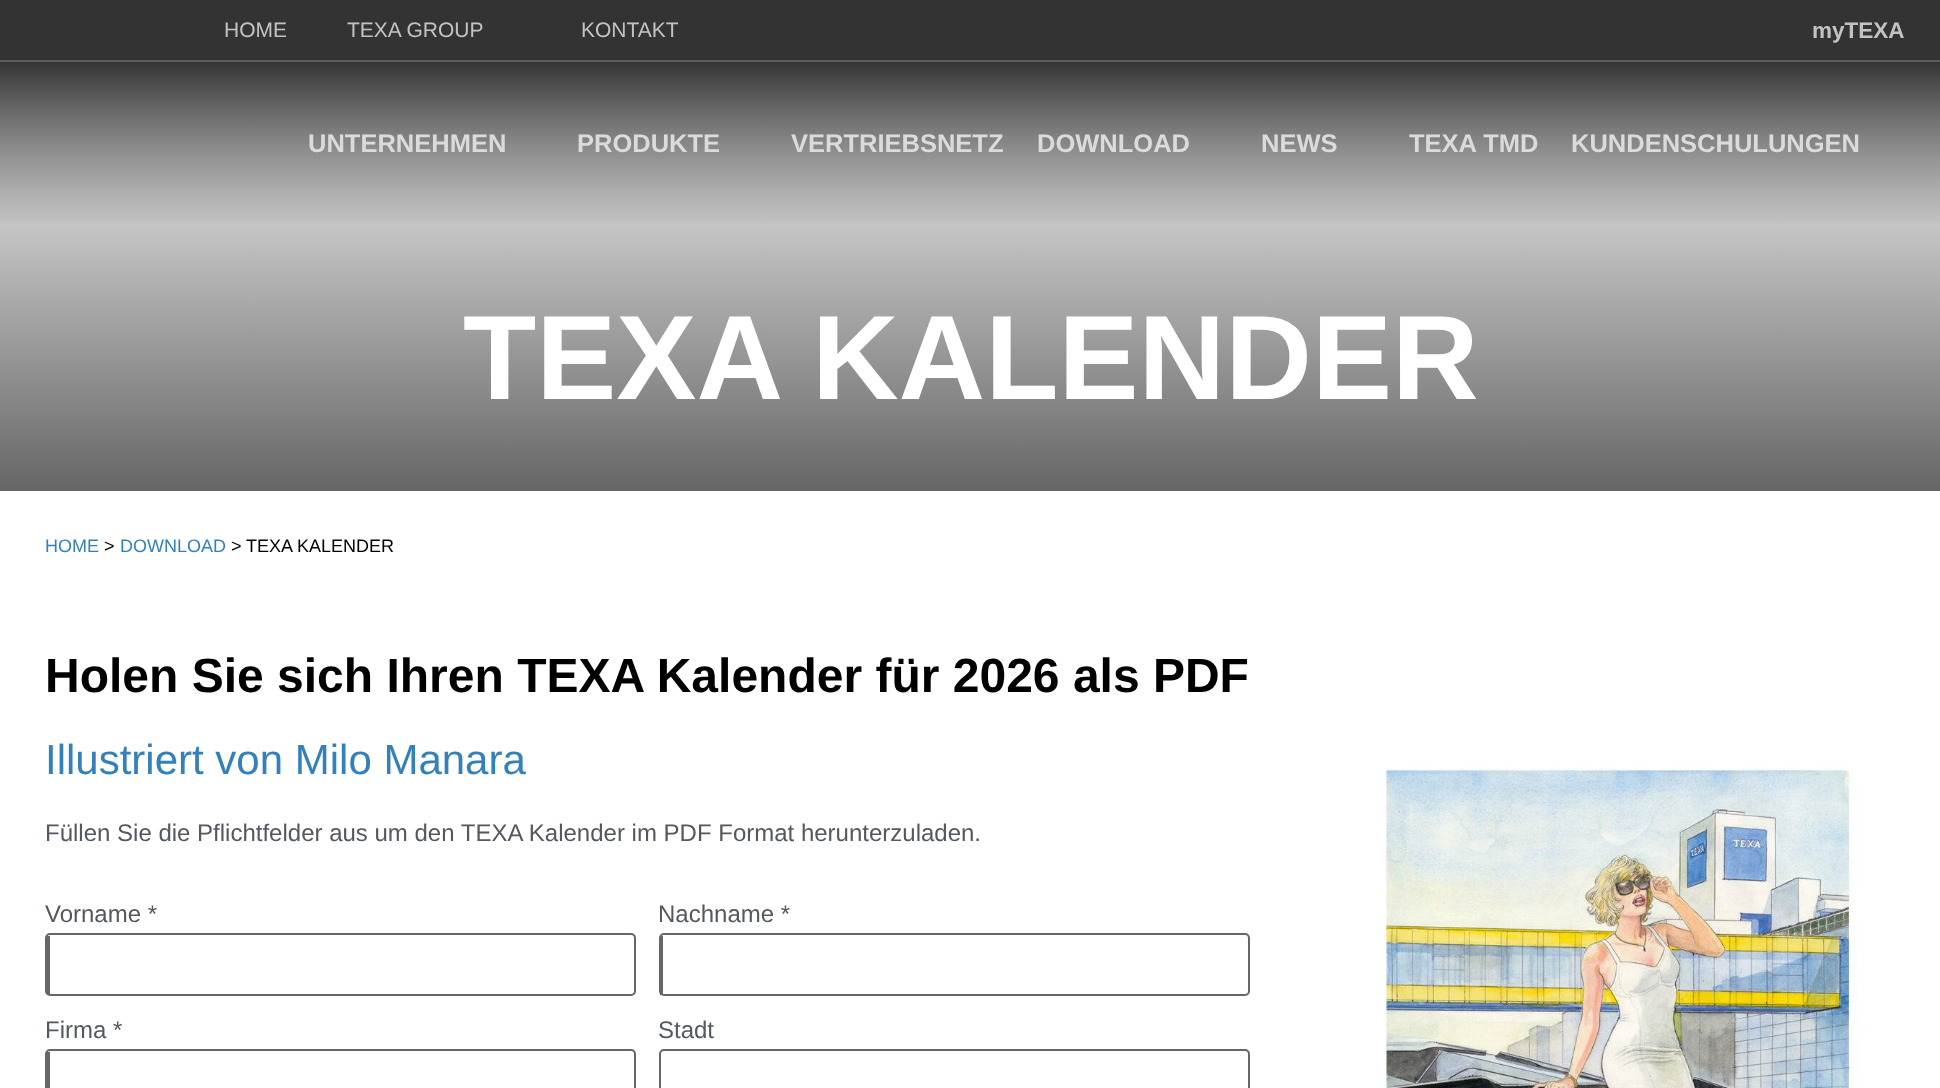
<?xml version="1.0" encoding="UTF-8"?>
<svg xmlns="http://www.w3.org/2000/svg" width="1940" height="1088">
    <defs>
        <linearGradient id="g1" gradientUnits="userSpaceOnUse" x1="971" y1="61" x2="971" y2="491"><stop offset="0" stop-color="#FFFFFF"/><stop offset="1" stop-color="#666666"/></linearGradient>
        <linearGradient id="g2" gradientUnits="userSpaceOnUse" x1="971" y1="61" x2="971" y2="227"><stop offset="0" stop-color="#000000" stop-opacity="0.8"/><stop offset="1" stop-color="#000000" stop-opacity="0"/></linearGradient>
    </defs>
    <rect width="100%" height="100%" fill="#FFFFFF"/>
    <rect x="0" y="0" width="1940" height="60" fill="#333333"/>
    <rect x="0" y="60" width="1940" height="2" fill="#5C5C5C"/>
    <text x="224" y="37" font-family="Liberation Sans" font-size="21" fill="#C2C2C2">HOME</text>
    <text x="347" y="37" font-family="Liberation Sans" font-size="21" fill="#C2C2C2">TEXA GROUP</text>
    <text x="581" y="37" font-family="Liberation Sans" font-size="21" fill="#C2C2C2">KONTAKT</text>
    <text x="1812" y="38" font-family="Liberation Sans" font-size="22.5" font-weight="700" fill="#C2C2C2">myTEXA</text>
    <rect x="0" y="68" width="1940" height="423" fill="url(#g1)"/>
    <rect x="0" y="62" width="1940" height="161" fill="url(#g2)"/>
    <text x="308" y="152" font-family="Liberation Sans" font-size="25.5" font-weight="700" fill="#DBDBDB">UNTERNEHMEN</text>
    <text x="577" y="152" font-family="Liberation Sans" font-size="25.5" font-weight="700" fill="#DBDBDB">PRODUKTE</text>
    <text x="791" y="152" font-family="Liberation Sans" font-size="25.5" font-weight="700" fill="#DBDBDB">VERTRIEBSNETZ</text>
    <text x="1037" y="152" font-family="Liberation Sans" font-size="25.5" font-weight="700" fill="#DBDBDB">DOWNLOAD</text>
    <text x="1261" y="152" font-family="Liberation Sans" font-size="25.5" font-weight="700" fill="#DBDBDB">NEWS</text>
    <text x="1409" y="152" font-family="Liberation Sans" font-size="25.5" font-weight="700" fill="#DBDBDB">TEXA TMD</text>
    <text x="1571" y="152" font-family="Liberation Sans" font-size="25.5" font-weight="700" fill="#DBDBDB">KUNDENSCHULUNGEN</text>
    <text x="463" y="399" font-family="Liberation Sans" font-size="120" font-weight="700" fill="#FFFFFF">TEXA KALENDER</text>
    <text x="45" y="552" font-family="Liberation Sans" font-size="18" fill="#3381BB">HOME</text>
    <text x="104" y="552" font-family="Liberation Sans" font-size="18" fill="#000000">&gt;</text>
    <text x="120" y="552" font-family="Liberation Sans" font-size="18" fill="#3381BB">DOWNLOAD</text>
    <text x="231" y="552" font-family="Liberation Sans" font-size="18" fill="#000000">&gt;</text>
    <text x="246" y="552" font-family="Liberation Sans" font-size="18" fill="#000000">TEXA KALENDER</text>
    <text x="45" y="692" font-family="Liberation Sans" font-size="48" font-weight="700" fill="#000000">Holen Sie sich Ihren TEXA Kalender für 2026 als PDF</text>
    <text x="45" y="774" font-family="Liberation Sans" font-size="42" fill="#3381BB">Illustriert von Milo Manara</text>
    <text x="45" y="841" font-family="Liberation Sans" font-size="24" fill="#54595F">Füllen Sie die Pflichtfelder aus um den TEXA Kalender im PDF Format herunterzuladen.</text>
    <text x="45" y="922" font-family="Liberation Sans" font-size="24" fill="#54595F">Vorname *</text>
    <rect x="46" y="934" width="589" height="61" rx="4" fill="none" stroke="#666666" stroke-width="2"/>
    <rect x="47" y="936" width="3" height="59" fill="#666666"/>
    <text x="658" y="922" font-family="Liberation Sans" font-size="24" fill="#54595F">Nachname *</text>
    <rect x="660" y="934" width="589" height="61" rx="4" fill="none" stroke="#666666" stroke-width="2"/>
    <rect x="660" y="936" width="3" height="59" fill="#666666"/>
    <text x="45" y="1038" font-family="Liberation Sans" font-size="24" fill="#54595F">Firma *</text>
    <rect x="46" y="1050" width="589" height="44" rx="4" fill="none" stroke="#666666" stroke-width="2"/>
    <rect x="47" y="1052" width="3" height="36" fill="#666666"/>
    <text x="658" y="1038" font-family="Liberation Sans" font-size="24" fill="#54595F">Stadt</text>
    <rect x="660" y="1050" width="589" height="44" rx="4" fill="none" stroke="#666666" stroke-width="2"/>
    <image x="1385" y="766" width="474" height="322" href="img_01.png"/>
</svg>
